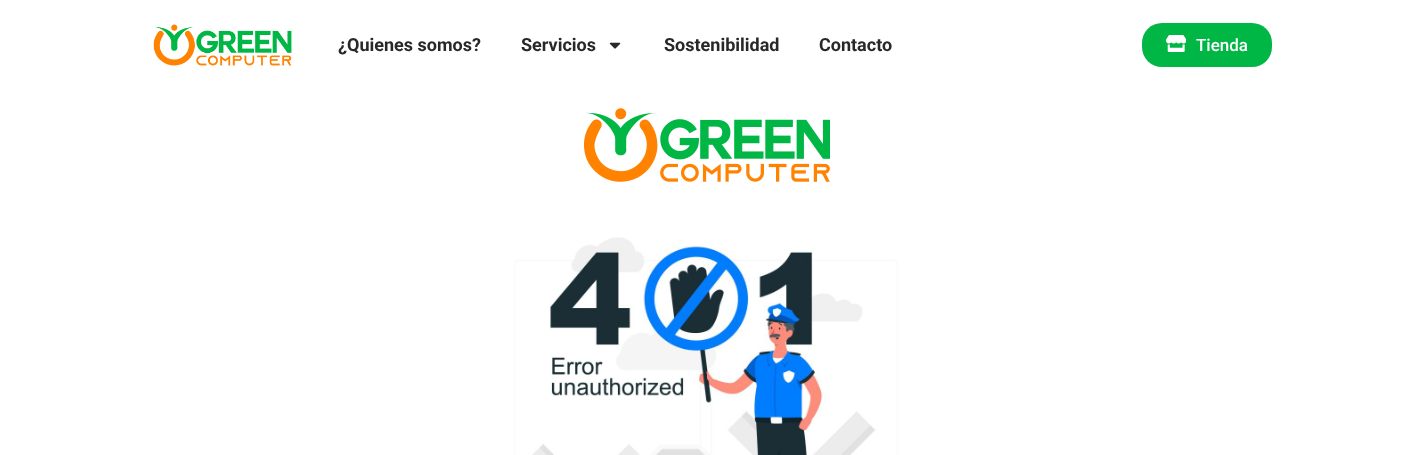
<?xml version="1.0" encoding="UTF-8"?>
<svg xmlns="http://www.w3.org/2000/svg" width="1414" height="455">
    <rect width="100%" height="100%" fill="#FFFFFF"/>
    <image x="153" y="24" width="139" height="42" href="img_01.png"/>
    <text x="338" y="51" font-family="Roboto" font-size="18" font-weight="700" fill="#28282A">¿Quienes somos?</text>
    <text x="521" y="51" font-family="Roboto" font-size="18" font-weight="700" fill="#28282A">Servicios</text>
    <image x="609" y="42" width="12" height="7" href="img_02.png"/>
    <text x="664" y="51" font-family="Roboto" font-size="18" font-weight="700" fill="#28282A">Sostenibilidad</text>
    <text x="819" y="51" font-family="Roboto" font-size="18" font-weight="700" fill="#28282A">Contacto</text>
    <rect x="1142" y="23" width="130" height="44" rx="20" fill="#00B645"/>
    <image x="1166" y="35" width="20" height="17" href="img_03.png"/>
    <text x="1196" y="51" font-family="Roboto" font-size="17" font-weight="500" fill="#FFFFFF">Tienda</text>
    <image x="584" y="108" width="246" height="74" href="img_04.png"/>
    <image x="514" y="237" width="384" height="218" href="img_05.png"/>
</svg>
